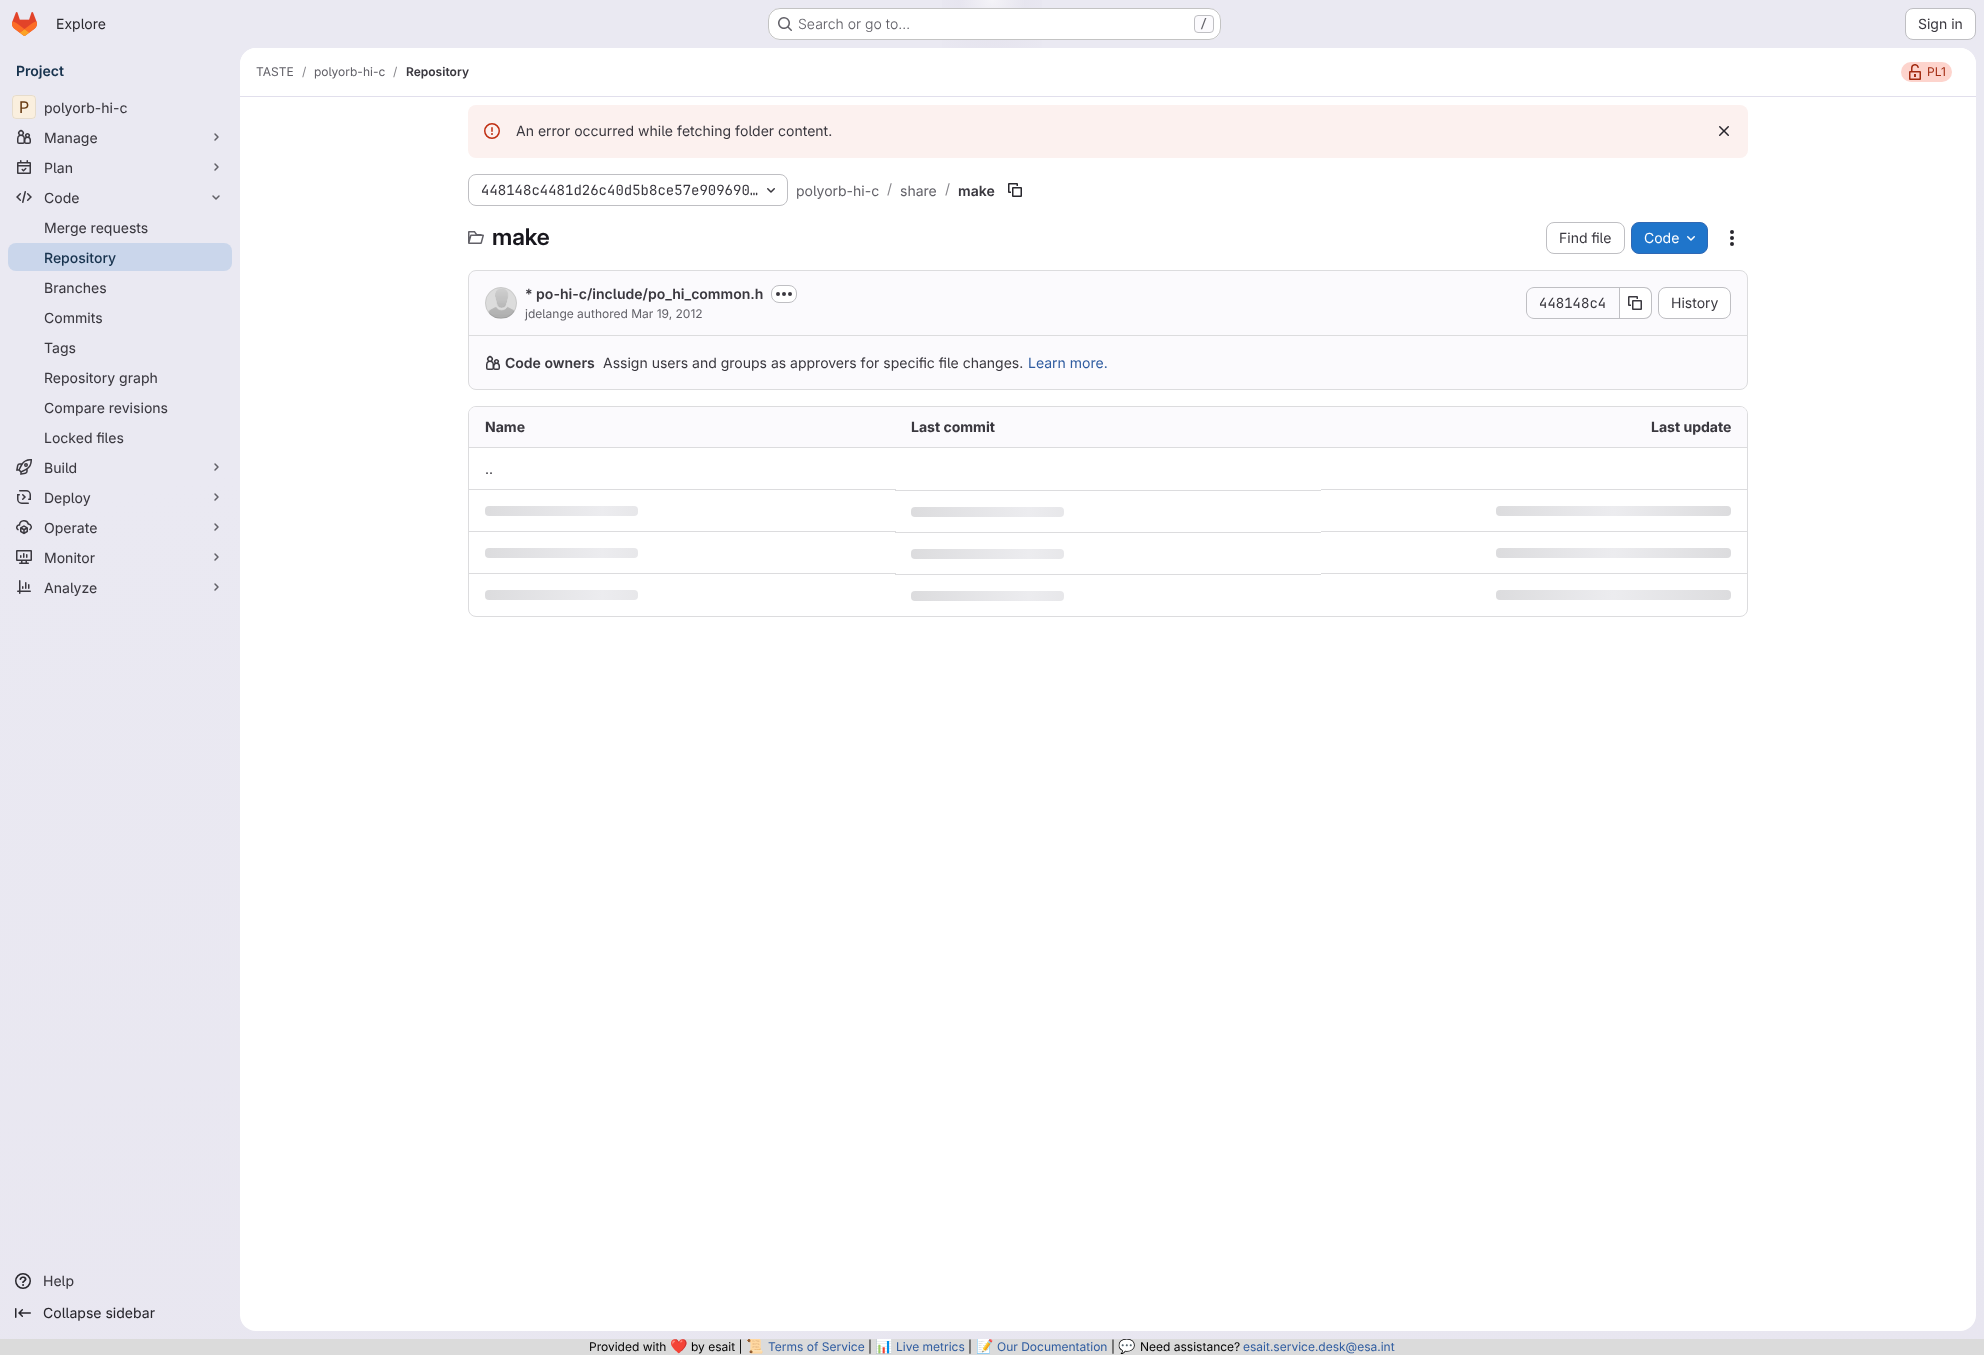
<?xml version="1.0" encoding="UTF-8"?>
<svg xmlns="http://www.w3.org/2000/svg" width="1984" height="1355">
    <defs>
        <linearGradient id="g1" gradientUnits="userSpaceOnUse" x1="1138" y1="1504" x2="846" y2="-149"><stop offset="0" stop-color="#E8E6F0"/><stop offset="0.7" stop-color="#EAE9F2"/></linearGradient>
        <radialGradient id="g2" gradientUnits="userSpaceOnUse" cx="0" cy="0" r="1" gradientTransform="matrix(992 0 0 1355 992 0)"><stop offset="0" stop-color="#E4E2ED"/><stop offset="0.07" stop-color="#E4E2ED" stop-opacity="0"/></radialGradient>
        <radialGradient id="g3" gradientUnits="userSpaceOnUse" cx="0" cy="0" r="1" gradientTransform="matrix(992 0 0 1355 992 0)"><stop offset="0" stop-color="#E4E2EC"/><stop offset="0.05" stop-color="#E4E2EC" stop-opacity="0"/></radialGradient>
        <radialGradient id="g4" gradientUnits="userSpaceOnUse" cx="992" cy="0" r="1679"><stop offset="0" stop-color="#FFFFFF" stop-opacity="0.6"/><stop offset="0.02" stop-color="#FFFFFF" stop-opacity="0"/></radialGradient>
        <linearGradient id="g5" gradientUnits="userSpaceOnUse" x1="485" y1="506" x2="720" y2="506"><stop offset="0" stop-color="#DCDCDE"/><stop offset="0.5" stop-color="#ECECEF"/><stop offset="1" stop-color="#DCDCDE"/></linearGradient>
        <linearGradient id="g6" gradientUnits="userSpaceOnUse" x1="911" y1="507" x2="1146" y2="507"><stop offset="0" stop-color="#DCDCDE"/><stop offset="0.5" stop-color="#ECECEF"/><stop offset="1" stop-color="#DCDCDE"/></linearGradient>
        <linearGradient id="g7" gradientUnits="userSpaceOnUse" x1="1496" y1="506" x2="1731" y2="506"><stop offset="0" stop-color="#DCDCDE"/><stop offset="0.5" stop-color="#ECECEF"/><stop offset="1" stop-color="#DCDCDE"/></linearGradient>
        <linearGradient id="g8" gradientUnits="userSpaceOnUse" x1="485" y1="548" x2="720" y2="548"><stop offset="0" stop-color="#DCDCDE"/><stop offset="0.5" stop-color="#ECECEF"/><stop offset="1" stop-color="#DCDCDE"/></linearGradient>
        <linearGradient id="g9" gradientUnits="userSpaceOnUse" x1="911" y1="549" x2="1146" y2="549"><stop offset="0" stop-color="#DCDCDE"/><stop offset="0.5" stop-color="#ECECEF"/><stop offset="1" stop-color="#DCDCDE"/></linearGradient>
        <linearGradient id="g10" gradientUnits="userSpaceOnUse" x1="1496" y1="548" x2="1731" y2="548"><stop offset="0" stop-color="#DCDCDE"/><stop offset="0.5" stop-color="#ECECEF"/><stop offset="1" stop-color="#DCDCDE"/></linearGradient>
        <linearGradient id="g11" gradientUnits="userSpaceOnUse" x1="485" y1="590" x2="720" y2="590"><stop offset="0" stop-color="#DCDCDE"/><stop offset="0.5" stop-color="#ECECEF"/><stop offset="1" stop-color="#DCDCDE"/></linearGradient>
        <linearGradient id="g12" gradientUnits="userSpaceOnUse" x1="911" y1="591" x2="1146" y2="591"><stop offset="0" stop-color="#DCDCDE"/><stop offset="0.5" stop-color="#ECECEF"/><stop offset="1" stop-color="#DCDCDE"/></linearGradient>
        <linearGradient id="g13" gradientUnits="userSpaceOnUse" x1="1496" y1="590" x2="1731" y2="590"><stop offset="0" stop-color="#DCDCDE"/><stop offset="0.5" stop-color="#ECECEF"/><stop offset="1" stop-color="#DCDCDE"/></linearGradient>
        <clipPath id="clip1"><rect x="589" y="1339" width="806" height="16"/></clipPath>
    </defs>
    <rect width="100%" height="100%" fill="#FFFFFF"/>
    <rect x="0" y="0" width="1984" height="1339" fill="url(#g1)"/>
    <rect x="942" y="0" width="100" height="48" fill="url(#g2)"/>
    <rect x="982" y="11" width="20" height="6" fill="url(#g3)"/>
    <rect x="960" y="0" width="64" height="8" fill="url(#g4)"/>
    <image x="12" y="12" width="25" height="24" href="img_01.png"/>
    <text x="56" y="29" font-family="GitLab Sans" font-size="14" fill="#28272D">Explore</text>
    <rect x="768" y="8" width="453" height="32" rx="12" fill="#FFFFFF"/>
    <rect x="768.5" y="8.5" width="452" height="31" rx="11.5" fill="none" stroke="#050506" stroke-opacity="0.24"/>
    <image x="778" y="17" width="14" height="14" href="img_02.png"/>
    <text x="798" y="29" font-family="GitLab Sans" font-size="14" font-weight="300" fill="#626168">Search or go to…</text>
    <rect x="1194.5" y="15.5" width="19" height="17" rx="3.5" fill="#FBFAFD" stroke="#BFBFC3"/>
    <text x="1200" y="28" font-family="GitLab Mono" font-size="12" font-weight="500" fill="#626168">/</text>
    <rect x="1905.5" y="8.5" width="70" height="31" rx="7.5" fill="#FFFFFF" stroke="#BFBFC3"/>
    <text x="1918" y="29" font-family="GitLab Sans" font-size="14" fill="#3A383F">Sign in</text>
    <text x="16" y="76" font-family="GitLab Sans" font-size="14" font-weight="600" fill="#18334E">Project</text>
    <rect x="12" y="95" width="24" height="24" rx="4" fill="#FFFFFF"/>
    <rect x="12" y="95" width="24" height="24" rx="4" fill="#E9BE74" fill-opacity="0.24"/>
    <rect x="12.5" y="95.5" width="23" height="23" rx="3.5" fill="none" stroke="#050506" stroke-opacity="0.08"/>
    <text x="19" y="113" font-family="'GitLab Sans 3'" font-size="16" fill="#693C14">P</text>
    <text x="44" y="113" font-family="'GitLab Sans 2'" font-size="14" fill="#3A383F">polyorb-hi-c</text>
    <image x="17" y="129" width="14" height="15" href="img_03.png"/>
    <text x="44" y="143" font-family="'GitLab Sans 2'" font-size="14" fill="#3A383F">Manage</text>
    <path d="M 215 134 L 218 137 L 215 140" fill="none" stroke="#626168" stroke-width="1.5" stroke-linecap="round" stroke-linejoin="round"/>
    <image x="17" y="160" width="14" height="14" href="img_04.png"/>
    <text x="44" y="173" font-family="'GitLab Sans 2'" font-size="14" fill="#3A383F">Plan</text>
    <path d="M 215 164 L 218 167 L 215 170" fill="none" stroke="#626168" stroke-width="1.5" stroke-linecap="round" stroke-linejoin="round"/>
    <image x="16" y="191" width="16" height="12" href="img_05.png"/>
    <text x="44" y="203" font-family="'GitLab Sans 2'" font-size="14" fill="#3A383F">Code</text>
    <path d="M 219 196 L 216 199 L 213 196" fill="none" stroke="#626168" stroke-width="1.5" stroke-linecap="round" stroke-linejoin="round"/>
    <text x="44" y="233" font-family="'GitLab Sans 2'" font-size="14" fill="#3A383F">Merge requests</text>
    <rect x="8" y="243" width="224" height="28" rx="8" fill="#CAD6EB"/>
    <text x="44" y="263" font-family="GitLab Sans" font-size="14" font-weight="500" fill="#18334E">Repository</text>
    <text x="44" y="293" font-family="'GitLab Sans 2'" font-size="14" fill="#3A383F">Branches</text>
    <text x="44" y="323" font-family="'GitLab Sans 2'" font-size="14" fill="#3A383F">Commits</text>
    <text x="44" y="353" font-family="'GitLab Sans 2'" font-size="14" fill="#3A383F">Tags</text>
    <text x="44" y="383" font-family="'GitLab Sans 2'" font-size="14" fill="#3A383F">Repository graph</text>
    <text x="44" y="413" font-family="'GitLab Sans 2'" font-size="14" fill="#3A383F">Compare revisions</text>
    <text x="44" y="443" font-family="'GitLab Sans 2'" font-size="14" fill="#3A383F">Locked files</text>
    <image x="16" y="459" width="16" height="16" href="img_06.png"/>
    <text x="44" y="473" font-family="'GitLab Sans 2'" font-size="14" fill="#3A383F">Build</text>
    <path d="M 215 464 L 218 467 L 215 470" fill="none" stroke="#626168" stroke-width="1.5" stroke-linecap="round" stroke-linejoin="round"/>
    <image x="17" y="490" width="14" height="14" href="img_07.png"/>
    <text x="44" y="503" font-family="'GitLab Sans 2'" font-size="14" fill="#3A383F">Deploy</text>
    <path d="M 215 494 L 218 497 L 215 500" fill="none" stroke="#626168" stroke-width="1.5" stroke-linecap="round" stroke-linejoin="round"/>
    <image x="16" y="520" width="16" height="15" href="img_08.png"/>
    <text x="44" y="533" font-family="'GitLab Sans 2'" font-size="14" fill="#3A383F">Operate</text>
    <path d="M 215 524 L 218 527 L 215 530" fill="none" stroke="#626168" stroke-width="1.5" stroke-linecap="round" stroke-linejoin="round"/>
    <image x="16" y="550" width="16" height="14" href="img_09.png"/>
    <text x="44" y="563" font-family="'GitLab Sans 2'" font-size="14" fill="#3A383F">Monitor</text>
    <path d="M 215 554 L 218 557 L 215 560" fill="none" stroke="#626168" stroke-width="1.5" stroke-linecap="round" stroke-linejoin="round"/>
    <image x="17" y="580" width="14" height="14" href="img_10.png"/>
    <text x="44" y="593" font-family="'GitLab Sans 2'" font-size="14" fill="#3A383F">Analyze</text>
    <path d="M 215 584 L 218 587 L 215 590" fill="none" stroke="#626168" stroke-width="1.5" stroke-linecap="round" stroke-linejoin="round"/>
    <image x="15" y="1273" width="16" height="16" href="img_11.png"/>
    <text x="43" y="1286" font-family="'GitLab Sans 2'" font-size="14" fill="#3A383F">Help</text>
    <image x="15" y="1308" width="16" height="10" href="img_12.png"/>
    <text x="43" y="1318" font-family="'GitLab Sans 2'" font-size="14" fill="#28272D">Collapse sidebar</text>
    <rect x="240" y="48" width="1736" height="1283" rx="16" fill="#FFFFFF"/>
    <path d="M 256 48 H 1960 C 1969 48 1976 55 1976 64 V 97 H 240 V 64 C 240 55 247 48 256 48 Z" fill="#FFFFFF"/>
    <rect x="240" y="96" width="1736" height="1" fill="#E1DFEC"/>
    <text x="256" y="76" font-family="GitLab Sans" font-size="12" fill="#626168">TASTE</text>
    <text x="302" y="76" font-family="GitLab Sans" font-size="12" fill="#89888D">/</text>
    <text x="314" y="76" font-family="GitLab Sans" font-size="12" fill="#626168">polyorb-hi-c</text>
    <text x="393" y="76" font-family="GitLab Sans" font-size="12" fill="#89888D">/</text>
    <text x="406" y="76" font-family="GitLab Sans" font-size="12" font-weight="600" fill="#3A383F">Repository</text>
    <rect x="1901" y="62" width="51" height="20" rx="10" fill="#FDD4CD"/>
    <image x="1909" y="64" width="12" height="16" href="img_13.png"/>
    <text x="1927" y="76" font-family="GitLab Sans" font-size="12" fill="#A32C12">PL1</text>
    <rect x="468" y="105" width="1280" height="53" rx="8" fill="#FCF1EF"/>
    <image x="484" y="123" width="16" height="16" href="img_14.png"/>
    <text x="516" y="136" font-family="GitLab Sans" font-size="14" fill="#3A383F">An error occurred while fetching folder content.</text>
    <image x="1719" y="126" width="10" height="10" href="img_15.png"/>
    <rect x="468.5" y="174.5" width="319" height="31" rx="7.5" fill="none" stroke="#BFBFC3"/>
    <text x="481" y="195" font-family="GitLab Mono" font-size="14" fill="#3A383F">448148c4481d26c40d5b8ce57e909690…</text>
    <image x="767" y="188" width="8" height="5" href="img_16.png"/>
    <text x="796" y="196" font-family="GitLab Sans" font-size="14" fill="#626168">polyorb-hi-c</text>
    <text x="887" y="194" font-family="GitLab Sans" font-size="14" fill="#89888D">/</text>
    <text x="900" y="196" font-family="GitLab Sans" font-size="14" fill="#626168">share</text>
    <text x="945" y="194" font-family="GitLab Sans" font-size="14" fill="#89888D">/</text>
    <text x="958" y="196" font-family="GitLab Sans" font-size="14" font-weight="600" fill="#3A383F">make</text>
    <image x="1008" y="183" width="14" height="14" href="img_17.png"/>
    <image x="468" y="231" width="16" height="13" href="img_18.png"/>
    <text x="492" y="245" font-family="'GitLab Sans 2'" font-size="23" font-weight="600" fill="#18171D">make</text>
    <rect x="1546.5" y="222.5" width="78" height="31" rx="7.5" fill="none" stroke="#BFBFC3"/>
    <text x="1559" y="243" font-family="GitLab Sans" font-size="14" fill="#3A383F">Find file</text>
    <rect x="1631.5" y="222.5" width="76" height="31" rx="7.5" fill="#1F75CB" stroke="#2F68B4"/>
    <text x="1644" y="243" font-family="GitLab Sans" font-size="14" fill="#FFFFFF">Code</text>
    <image x="1687" y="236" width="8" height="5" href="img_19.png"/>
    <image x="1730" y="230" width="4" height="16" href="img_20.png"/>
    <rect x="468.5" y="270.5" width="1279" height="119" rx="7.5" fill="#FBFAFD" stroke="#DCDCDE"/>
    <image x="485" y="287" width="32" height="32" href="img_21.png"/>
    <circle cx="501" cy="303" r="15.5" fill="none" stroke="#050506" stroke-opacity="0.08"/>
    <text x="525" y="299" font-family="GitLab Sans" font-size="14" font-weight="600" fill="#3A383F">* po-hi-c/include/po_hi_common.h</text>
    <rect x="771.5" y="285.5" width="25" height="17" rx="7.5" fill="#FFFFFF" stroke="#BFBFC3"/>
    <image x="776" y="292" width="16" height="4" href="img_22.png"/>
    <text x="525" y="318" font-family="GitLab Sans" font-size="12" fill="#626168">jdelange authored Mar 19, 2012</text>
    <path d="M 1534 287 H 1619 V 319 H 1534 C 1530 319 1526 315 1526 311 V 295 C 1526 291 1530 287 1534 287 Z M 1534 288 H 1619 V 318 H 1534 C 1530 318 1527 315 1527 311 V 295 C 1527 291 1530 288 1534 288 Z" fill="#BFBFC3" fill-rule="evenodd"/>
    <text x="1539" y="308" font-family="GitLab Mono" font-size="14" fill="#3A383F">448148c4</text>
    <path d="M 1620 288 H 1644 C 1648 288 1651 291 1651 295 V 311 C 1651 315 1648 318 1644 318 H 1620 Z" fill="#FFFFFF"/>
    <path d="M 1620 287 H 1644 C 1648.5 287 1652 290.5 1652 295 V 311 C 1652 315.5 1648.5 319 1644 319 H 1620 Z M 1620 288 H 1644 C 1648 288 1651 291 1651 295 V 311 C 1651 315 1648 318 1644 318 H 1620 Z" fill="#BFBFC3" fill-rule="evenodd"/>
    <rect x="1619" y="287" width="1" height="32" fill="#BFBFC3"/>
    <image x="1628" y="296" width="14" height="14" href="img_23.png"/>
    <rect x="1658.5" y="287.5" width="72" height="31" rx="7.5" fill="#FFFFFF" stroke="#BFBFC3"/>
    <text x="1671" y="308" font-family="GitLab Sans" font-size="14" fill="#3A383F">History</text>
    <rect x="469" y="335" width="1278" height="1" fill="#DCDCDE"/>
    <image x="486" y="355" width="14" height="15" href="img_24.png"/>
    <text x="505" y="368" font-family="GitLab Sans" font-size="14" font-weight="600" fill="#3A383F">Code owners</text>
    <text x="603" y="368" font-family="GitLab Sans" font-size="14" fill="#3A383F">Assign users and groups as approvers for specific file changes.</text>
    <text x="1028" y="368" font-family="GitLab Sans" font-size="14" fill="#2F5CA0">Learn more.</text>
    <rect x="468.5" y="406.5" width="1279" height="210" rx="7.5" fill="none" stroke="#DCDCDE"/>
    <path d="M 476 407 H 895 V 448 H 469 V 414 C 469 410 472 407 476 407 Z" fill="#FBFAFD"/>
    <text x="485" y="432" font-family="GitLab Sans" font-size="14" font-weight="700" fill="#3A383F">Name</text>
    <rect x="895" y="407" width="426" height="40" fill="#FBFAFD"/>
    <text x="911" y="432" font-family="GitLab Sans" font-size="14" font-weight="700" fill="#3A383F">Last commit</text>
    <path d="M 1321 407 H 1740 C 1744 407 1747 410 1747 414 V 448 H 1321 Z" fill="#FBFAFD"/>
    <text x="1651" y="432" font-family="GitLab Sans" font-size="14" font-weight="700" fill="#3A383F">Last update</text>
    <rect x="469" y="447" width="1278" height="1" fill="#DCDCDE"/>
    <text x="485" y="474" font-family="GitLab Sans" font-size="14" fill="#3A383F">..</text>
    <rect x="469" y="489" width="427" height="1" fill="#DCDCDE"/>
    <rect x="485" y="506" width="153" height="10" rx="4" fill="url(#g5)"/>
    <rect x="895" y="490" width="426" height="1" fill="#DCDCDE"/>
    <rect x="911" y="507" width="153" height="10" rx="4" fill="url(#g6)"/>
    <rect x="1321" y="489" width="426" height="1" fill="#DCDCDE"/>
    <rect x="1496" y="506" width="235" height="10" rx="4" fill="url(#g7)"/>
    <rect x="469" y="531" width="427" height="1" fill="#DCDCDE"/>
    <rect x="485" y="548" width="153" height="10" rx="4" fill="url(#g8)"/>
    <rect x="895" y="532" width="426" height="1" fill="#DCDCDE"/>
    <rect x="911" y="549" width="153" height="10" rx="4" fill="url(#g9)"/>
    <rect x="1321" y="531" width="426" height="1" fill="#DCDCDE"/>
    <rect x="1496" y="548" width="235" height="10" rx="4" fill="url(#g10)"/>
    <rect x="469" y="573" width="427" height="1" fill="#DCDCDE"/>
    <rect x="485" y="590" width="153" height="10" rx="4" fill="url(#g11)"/>
    <rect x="895" y="574" width="426" height="1" fill="#DCDCDE"/>
    <rect x="911" y="591" width="153" height="10" rx="4" fill="url(#g12)"/>
    <rect x="1321" y="573" width="426" height="1" fill="#DCDCDE"/>
    <rect x="1496" y="590" width="235" height="10" rx="4" fill="url(#g13)"/>
    <rect x="0" y="1339" width="1984" height="16" fill="#DBDBDB"/>
    <text x="589" y="1351" font-family="GitLab Sans" font-size="12" fill="#000000">Provided with</text>
    <g clip-path="url(#clip1)">
        <text x="670" y="1351" font-family="Noto Color Emoji" font-size="14" fill="#000000">❤️</text>
    </g>
    <text x="691" y="1351" font-family="GitLab Sans" font-size="12" fill="#000000">by esait |</text>
    <g clip-path="url(#clip1)">
        <text x="746" y="1351" font-family="Noto Color Emoji" font-size="14" fill="#000000">📜</text>
    </g>
    <text x="768" y="1351" font-family="GitLab Sans" font-size="12" fill="#2F5CA0">Terms of Service</text>
    <text x="868" y="1351" font-family="GitLab Sans" font-size="12" fill="#000000">|</text>
    <g clip-path="url(#clip1)">
        <text x="875" y="1351" font-family="Noto Color Emoji" font-size="14" fill="#000000">📊</text>
    </g>
    <text x="896" y="1351" font-family="GitLab Sans" font-size="12" fill="#2F5CA0">Live metrics</text>
    <text x="968" y="1351" font-family="GitLab Sans" font-size="12" fill="#000000">|</text>
    <g clip-path="url(#clip1)">
        <text x="976" y="1351" font-family="Noto Color Emoji" font-size="14" fill="#000000">📝</text>
    </g>
    <text x="997" y="1351" font-family="GitLab Sans" font-size="12" fill="#2F5CA0">Our Documentation</text>
    <text x="1111" y="1351" font-family="GitLab Sans" font-size="12" fill="#000000">|</text>
    <g clip-path="url(#clip1)">
        <text x="1118" y="1351" font-family="Noto Color Emoji" font-size="14" fill="#000000">💬</text>
    </g>
    <text x="1140" y="1351" font-family="GitLab Sans" font-size="12" fill="#000000">Need assistance?</text>
    <text x="1243" y="1351" font-family="GitLab Sans" font-size="12" fill="#2F5CA0">esait.service.desk@esa.int</text>
</svg>
